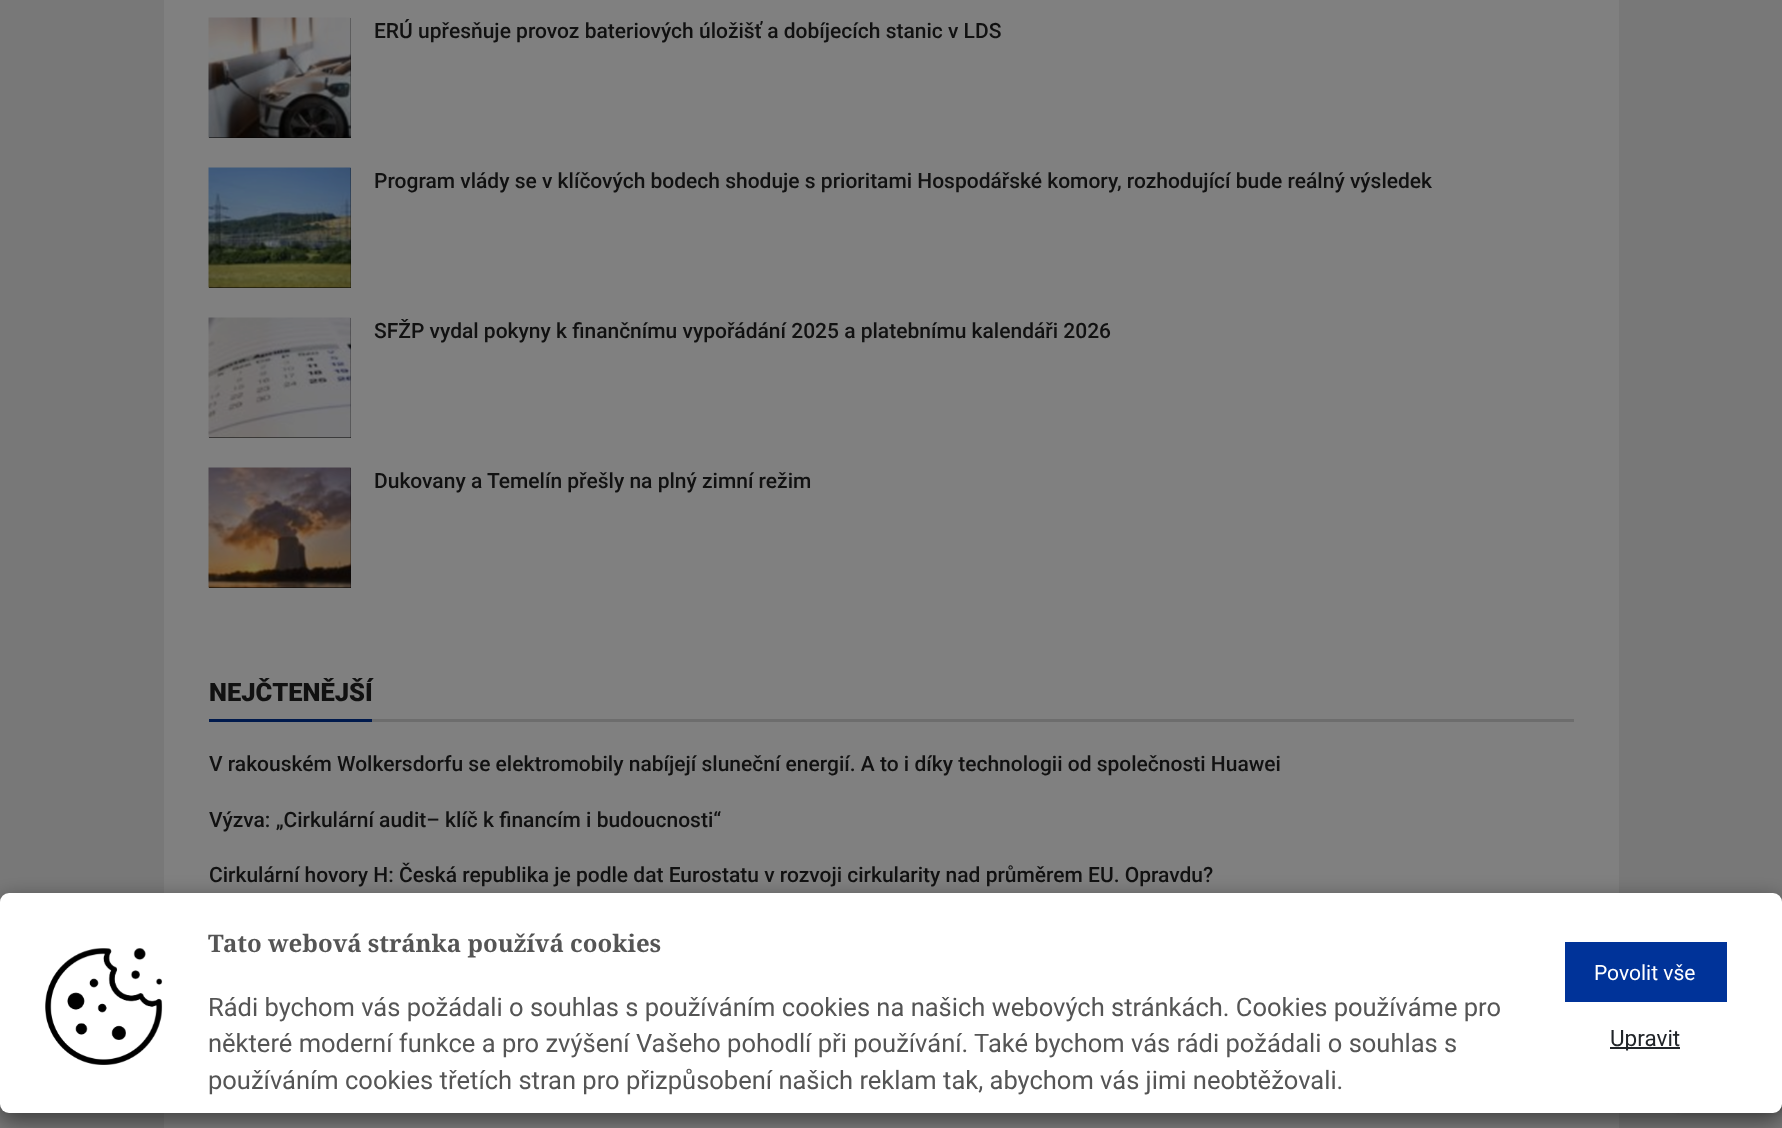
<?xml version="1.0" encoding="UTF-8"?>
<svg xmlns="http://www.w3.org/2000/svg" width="1782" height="1128">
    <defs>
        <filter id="blur1" x="-50%" y="-200%" width="200%" height="500%"><feGaussianBlur stdDeviation="4"/></filter>
        <filter id="blur2" x="-50%" y="-200%" width="200%" height="500%"><feGaussianBlur stdDeviation="11"/></filter>
    </defs>
    <rect width="100%" height="100%" fill="#787878"/>
    <rect x="164" y="0" width="1455" height="1128" fill="#808080"/>
    <rect x="209" y="18" width="142" height="120" fill="#000000"/>
    <image x="208" y="17" width="143" height="121" href="img_01.png"/>
    <text x="374" y="38" font-family="Roboto" font-size="21" font-weight="500" fill="#111111">ERÚ upřesňuje provoz bateriových úložišť a dobíjecích stanic v LDS</text>
    <rect x="209" y="168" width="142" height="120" fill="#000000"/>
    <image x="208" y="167" width="143" height="121" href="img_02.png"/>
    <text x="374" y="188" font-family="Roboto" font-size="21" font-weight="500" fill="#111111">Program vlády se v klíčových bodech shoduje s prioritami Hospodářské komory, rozhodující bude reálný výsledek</text>
    <rect x="209" y="318" width="142" height="120" fill="#000000"/>
    <image x="208" y="317" width="143" height="121" href="img_03.png"/>
    <text x="374" y="338" font-family="Roboto" font-size="21" font-weight="500" fill="#111111">SFŽP vydal pokyny k finančnímu vypořádání 2025 a platebnímu kalendáři 2026</text>
    <rect x="209" y="468" width="142" height="120" fill="#000000"/>
    <image x="208" y="467" width="143" height="121" href="img_04.png"/>
    <text x="374" y="488" font-family="Roboto" font-size="21" font-weight="500" fill="#111111">Dukovany a Temelín přešly na plný zimní režim</text>
    <rect x="372" y="719" width="1202" height="3" fill="#6D6D6D"/>
    <rect x="209" y="719" width="163" height="3" fill="#001A4D"/>
    <text x="209" y="701" font-family="Roboto" font-size="25.5" font-weight="900" fill="#111111">NEJČTENĚJŠÍ</text>
    <text x="209" y="771" font-family="Roboto" font-size="21" font-weight="500" fill="#111111">V rakouském Wolkersdorfu se elektromobily nabíjejí sluneční energií. A to i díky technologii od společnosti Huawei</text>
    <text x="209" y="827" font-family="Roboto" font-size="21" font-weight="500" fill="#111111">Výzva: „Cirkulární audit– klíč k financím i budoucnosti“</text>
    <text x="209" y="882" font-family="Roboto" font-size="21" font-weight="500" fill="#111111">Cirkulární hovory H: Česká republika je podle dat Eurostatu v rozvoji cirkularity nad průměrem EU. Opravdu?</text>
    <rect x="1677" y="1017" width="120" height="90" rx="3" fill="#404040" filter="url(#blur1)"/>
    <rect x="0" y="900" width="1782" height="221" rx="9" fill="#000000" fill-opacity="0.5" filter="url(#blur2)"/>
    <rect x="0" y="893" width="1782" height="220" rx="9" fill="#FFFFFF"/>
    <image x="45" y="948" width="118" height="117" href="img_05.png"/>
    <text x="208" y="952" font-family="Noto Serif" font-size="24" font-weight="700" fill="#555555">Tato webová stránka používá cookies</text>
    <text font-family="Roboto" font-size="25.5" fill="#555555">
        <tspan x="208" y="1016">Rádi bychom vás požádali o souhlas s používáním cookies na našich webových stránkách. Cookies používáme pro</tspan>
        <tspan x="208" y="1052">některé moderní funkce a pro zvýšení Vašeho pohodlí při používání. Také bychom vás rádi požádali o souhlas s</tspan>
        <tspan x="208" y="1089">používáním cookies třetích stran pro přizpůsobení našich reklam tak, abychom vás jimi neobtěžovali.</tspan>
    </text>
    <rect x="1565" y="942" width="162" height="60" fill="#003399"/>
    <text x="1594" y="980" font-family="Roboto" font-size="21" fill="#FFFFFF">Povolit vše</text>
    <rect x="1610" y="1047" width="70" height="2" fill="#212529"/>
    <text x="1610" y="1046" font-family="Roboto" font-size="22.5" fill="#212529">Upravit</text>
</svg>
